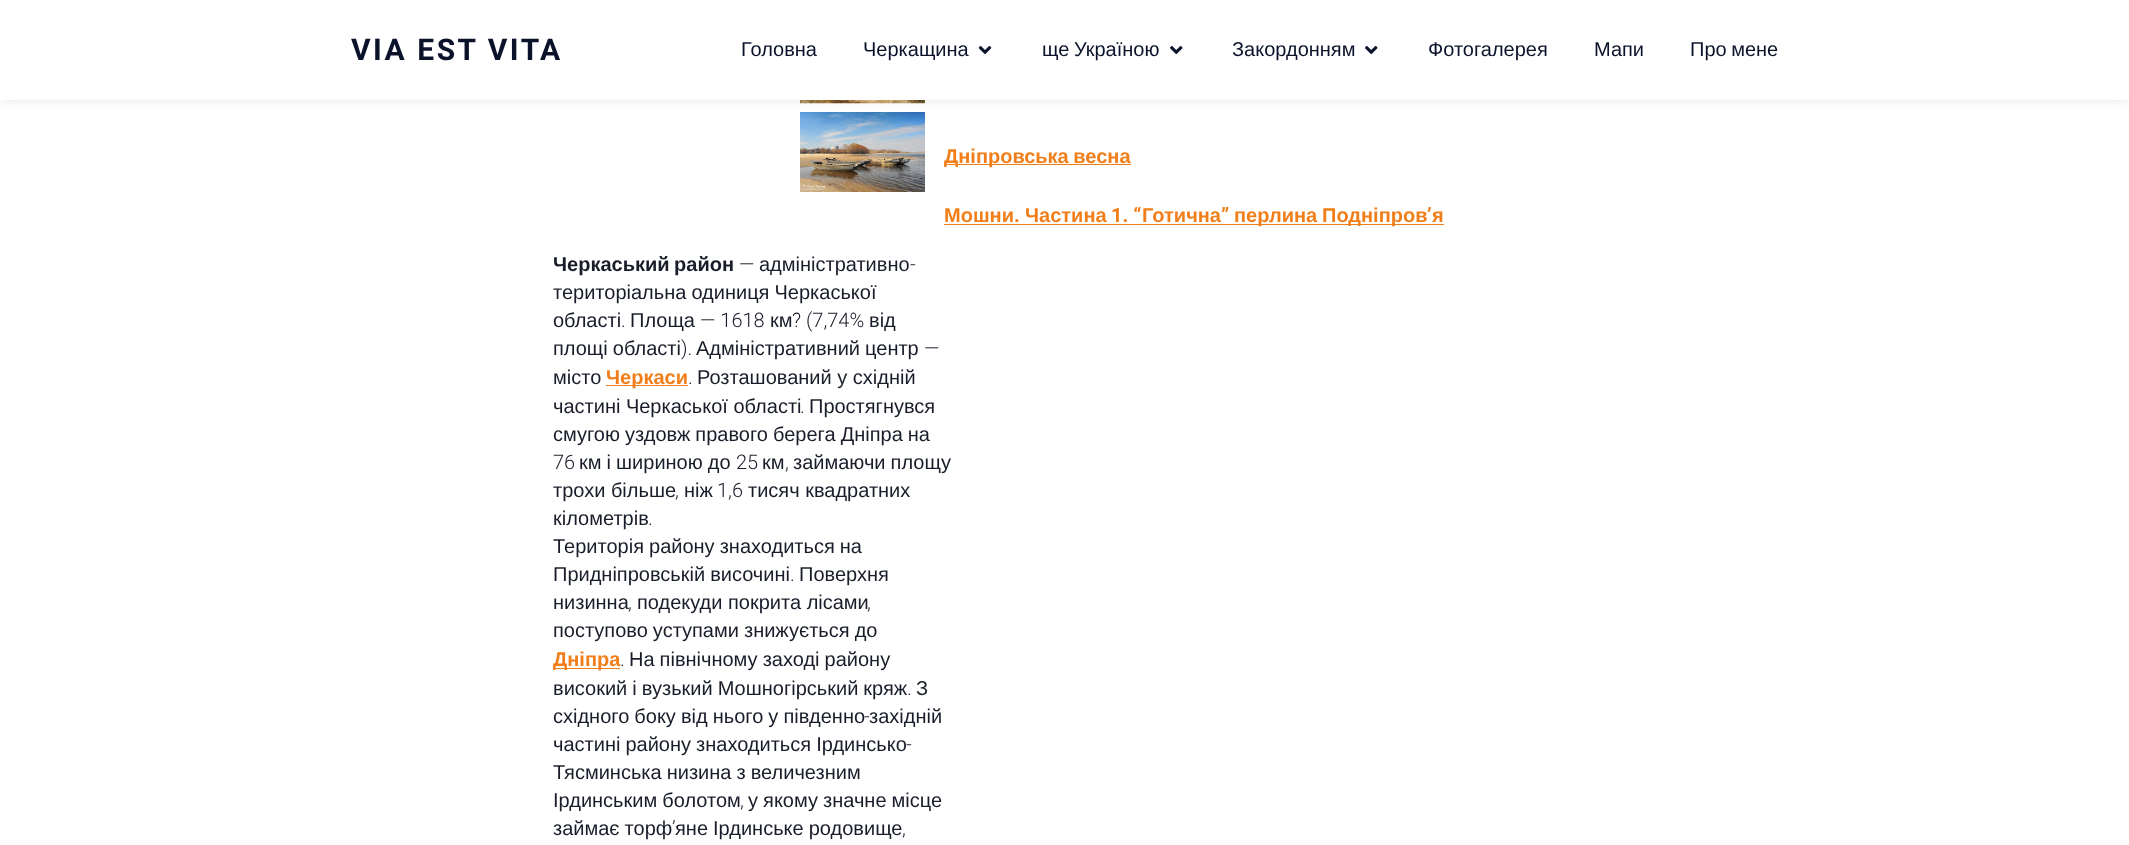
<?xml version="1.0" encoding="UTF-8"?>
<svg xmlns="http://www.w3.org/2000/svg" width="2129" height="845">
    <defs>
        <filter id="blur1" x="-50%" y="-200%" width="200%" height="500%"><feGaussianBlur stdDeviation="6"/></filter>
    </defs>
    <rect width="100%" height="100%" fill="#FFFFFF"/>
    <image x="800" y="100" width="125" height="4" href="img_03.png"/>
    <image x="800" y="112" width="125" height="80" href="img_04.png"/>
    <rect x="0" y="0" width="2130" height="100" fill="#171927" fill-opacity="0.1" filter="url(#blur1)"/>
    <rect x="0" y="0" width="2129" height="100" fill="#FFFFFF"/>
    <text x="351" y="60" font-family="Roboto" font-size="30" font-weight="700" letter-spacing="2.5" fill="#0B132B">VIA EST VITA</text>
    <text x="741" y="56" font-family="Liberation Sans" font-size="20" fill="#0B132B">Головна</text>
    <text x="863" y="56" font-family="Liberation Sans" font-size="20" fill="#0B132B">Черкащина</text>
    <image x="978" y="46" width="14" height="8" href="img_01.png"/>
    <text x="1042" y="56" word-spacing="-1" font-family="Liberation Sans" font-size="20" fill="#0B132B">ще Україною</text>
    <image x="1170" y="46" width="13" height="8" href="img_02.png"/>
    <text x="1232" y="56" font-family="Liberation Sans" font-size="20" fill="#0B132B">Закордонням</text>
    <image x="1365" y="46" width="13" height="8" href="img_02.png"/>
    <text x="1428" y="56" font-family="Liberation Sans" font-size="20" fill="#0B132B">Фотогалерея</text>
    <text x="1594" y="56" font-family="Liberation Sans" font-size="20" fill="#0B132B">Мапи</text>
    <text x="1690" y="56" word-spacing="-1" font-family="Liberation Sans" font-size="20" fill="#0B132B">Про мене</text>
    <rect x="944" y="164" width="187" height="1" fill="#F17E18"/>
    <text x="944" y="163" word-spacing="-1" font-family="Liberation Sans" font-size="20" font-weight="700" fill="#F17E18">Дніпровська весна</text>
    <text x="944" y="222" font-family="Liberation Sans" font-size="20" font-weight="700" fill="#F17E18">Мошни</text>
    <text x="1014" y="222" font-family="Roboto" font-size="20" font-weight="700" fill="#F17E18">.</text>
    <rect x="944" y="224" width="500" height="1" fill="#F17E18"/>
    <text x="1025" y="222" font-family="Liberation Sans" font-size="20" font-weight="700" fill="#F17E18">Частина</text>
    <text x="1111" y="222" font-family="Roboto" font-size="20" font-weight="700" fill="#F17E18">1. “</text>
    <text x="1142" y="222" font-family="Liberation Sans" font-size="20" font-weight="700" fill="#F17E18">Готична</text>
    <text x="1221" y="222" font-family="Roboto" font-size="20" font-weight="700" fill="#F17E18">”</text>
    <text x="1234" y="222" font-family="Liberation Sans" font-size="20" font-weight="700" fill="#F17E18">перлина</text>
    <text x="1322" y="222" font-family="Liberation Sans" font-size="20" font-weight="700" fill="#F17E18">Подніпров</text>
    <text x="1427" y="222" font-family="Roboto" font-size="20" font-weight="700" fill="#F17E18">’</text>
    <text x="1432" y="222" font-family="Liberation Sans" font-size="20" font-weight="700" fill="#F17E18">я</text>
    <text x="553" y="271" word-spacing="-1" font-family="Liberation Sans" font-size="20" font-weight="700" fill="#191D2A">Черкаський район</text>
    <text x="739" y="271" font-family="Roboto" font-size="20" font-weight="300" fill="#191D2A">—</text>
    <text x="759" y="271" font-family="Liberation Sans" font-size="20" fill="#191D2A">адміністративно</text>
    <text x="910" y="271" font-family="Roboto" font-size="20" font-weight="300" fill="#191D2A">-</text>
    <text font-family="Liberation Sans" font-size="20" fill="#191D2A">
        <tspan x="553" y="299" word-spacing="-0.5">територіальна одиниця Черкаської</tspan>
        <tspan x="553" y="327">області</tspan>
    </text>
    <text x="621" y="327" font-family="Roboto" font-size="20" font-weight="300" fill="#191D2A">.</text>
    <text x="630" y="327" font-family="Liberation Sans" font-size="20" fill="#191D2A">Площа</text>
    <text x="700" y="327" font-family="Roboto" font-size="20" font-weight="300" fill="#191D2A">— 1618</text>
    <text x="770" y="327" font-family="Liberation Sans" font-size="20" fill="#191D2A">км</text>
    <text x="792" y="327" font-family="Roboto" font-size="20" font-weight="300" fill="#191D2A">? (7,74%</text>
    <text x="869" y="327" font-family="Liberation Sans" font-size="20" fill="#191D2A">від</text>
    <text x="553" y="355" word-spacing="-0.5" font-family="Liberation Sans" font-size="20" fill="#191D2A">площі області</text>
    <text x="681" y="355" font-family="Roboto" font-size="20" font-weight="300" fill="#191D2A">).</text>
    <text x="696" y="355" word-spacing="-0.5" font-family="Liberation Sans" font-size="20" fill="#191D2A">Адміністративний центр</text>
    <text x="924" y="355" font-family="Roboto" font-size="20" font-weight="300" fill="#191D2A">—</text>
    <text x="553" y="384" font-family="Liberation Sans" font-size="20" fill="#191D2A">місто</text>
    <rect x="606" y="385" width="82" height="1" fill="#F17E18"/>
    <text x="606" y="384" font-family="Liberation Sans" font-size="20" font-weight="700" fill="#F17E18">Черкаси</text>
    <text x="688" y="384" font-family="Roboto" font-size="20" font-weight="300" fill="#191D2A">.</text>
    <text x="697" y="384" font-family="Liberation Sans" font-size="20" fill="#191D2A">Розташований у східній</text>
    <text x="553" y="413" font-family="Liberation Sans" font-size="20" fill="#191D2A">частині Черкаської області</text>
    <text x="800" y="413" font-family="Roboto" font-size="20" font-weight="300" fill="#191D2A">.</text>
    <text x="809" y="413" font-family="Liberation Sans" font-size="20" fill="#191D2A">Простягнувся</text>
    <text x="553" y="441" word-spacing="-0.5" font-family="Liberation Sans" font-size="20" fill="#191D2A">смугою уздовж правого берега Дніпра на</text>
    <text x="553" y="469" font-family="Roboto" font-size="20" font-weight="300" fill="#191D2A">76</text>
    <text x="579" y="469" word-spacing="-0.5" font-family="Liberation Sans" font-size="20" fill="#191D2A">км і шириною до</text>
    <text x="736" y="469" font-family="Roboto" font-size="20" font-weight="300" fill="#191D2A">25</text>
    <text x="762" y="469" font-family="Liberation Sans" font-size="20" fill="#191D2A">км</text>
    <text x="793" y="469" word-spacing="-0.5" font-family="Liberation Sans" font-size="20" fill="#191D2A">займаючи площу</text>
    <text x="785" y="469" font-family="Roboto" font-size="20" font-weight="300" fill="#191D2A">,</text>
    <text x="553" y="497" font-family="Liberation Sans" font-size="20" fill="#191D2A">трохи більше</text>
    <text x="675" y="497" font-family="Roboto" font-size="20" font-weight="300" fill="#191D2A">,</text>
    <text x="684" y="497" font-family="Liberation Sans" font-size="20" fill="#191D2A">ніж</text>
    <text x="717" y="497" font-family="Roboto" font-size="20" font-weight="300" fill="#191D2A">1,6</text>
    <text x="748" y="497" font-family="Liberation Sans" font-size="20" fill="#191D2A">тисяч квадратних</text>
    <text x="553" y="525" font-family="Liberation Sans" font-size="20" fill="#191D2A">кілометрів</text>
    <text x="648" y="525" font-family="Roboto" font-size="20" font-weight="300" fill="#191D2A">.</text>
    <text font-family="Liberation Sans" font-size="20" fill="#191D2A">
        <tspan x="553" y="553" word-spacing="-0.5">Територія району знаходиться на</tspan>
        <tspan x="553" y="581" word-spacing="-0.5">Придніпровській височині</tspan>
    </text>
    <text x="790" y="581" font-family="Roboto" font-size="20" font-weight="300" fill="#191D2A">.</text>
    <text x="799" y="581" font-family="Liberation Sans" font-size="20" fill="#191D2A">Поверхня</text>
    <text x="553" y="609" font-family="Liberation Sans" font-size="20" fill="#191D2A">низинна</text>
    <text x="628" y="609" font-family="Roboto" font-size="20" font-weight="300" fill="#191D2A">,</text>
    <text x="637" y="609" font-family="Liberation Sans" font-size="20" fill="#191D2A">подекуди покрита лісами</text>
    <text x="867" y="609" font-family="Roboto" font-size="20" font-weight="300" fill="#191D2A">,</text>
    <text x="553" y="637" word-spacing="-0.5" font-family="Liberation Sans" font-size="20" fill="#191D2A">поступово уступами знижується до</text>
    <rect x="553" y="668" width="67" height="1" fill="#F17E18"/>
    <text x="553" y="666" font-family="Liberation Sans" font-size="20" font-weight="700" fill="#F17E18">Дніпра</text>
    <text x="620" y="666" font-family="Roboto" font-size="20" font-weight="300" fill="#191D2A">.</text>
    <text x="629" y="666" word-spacing="-0.5" font-family="Liberation Sans" font-size="20" fill="#191D2A">На північному заході району</text>
    <text x="553" y="695" word-spacing="-0.5" font-family="Liberation Sans" font-size="20" fill="#191D2A">високий і вузький Мошногірський кряж</text>
    <text x="907" y="695" font-family="Roboto" font-size="20" font-weight="300" fill="#191D2A">.</text>
    <text x="916" y="695" font-family="Liberation Sans" font-size="20" fill="#191D2A">З</text>
    <text x="553" y="723" word-spacing="-0.5" font-family="Liberation Sans" font-size="20" fill="#191D2A">східного боку від нього у південно</text>
    <text x="864" y="723" font-family="Roboto" font-size="20" font-weight="300" fill="#191D2A">-</text>
    <text x="869" y="723" font-family="Liberation Sans" font-size="20" fill="#191D2A">західній</text>
    <text x="553" y="751" word-spacing="-0.5" font-family="Liberation Sans" font-size="20" fill="#191D2A">частині району знаходиться Ірдинсько</text>
    <text x="906" y="751" font-family="Roboto" font-size="20" font-weight="300" fill="#191D2A">-</text>
    <text font-family="Liberation Sans" font-size="20" fill="#191D2A">
        <tspan x="553" y="779" word-spacing="-0.5">Тясминська низина з величезним</tspan>
        <tspan x="553" y="807" word-spacing="-0.5">Ірдинським болотом</tspan>
    </text>
    <text x="740" y="807" font-family="Roboto" font-size="20" font-weight="300" fill="#191D2A">,</text>
    <text x="748" y="807" word-spacing="-0.5" font-family="Liberation Sans" font-size="20" fill="#191D2A">у якому значне місце</text>
    <text x="553" y="835" word-spacing="-0.5" font-family="Liberation Sans" font-size="20" fill="#191D2A">займає торф</text>
    <text x="672" y="835" font-family="Roboto" font-size="20" font-weight="300" fill="#191D2A">’</text>
    <text x="675" y="835" word-spacing="-0.5" font-family="Liberation Sans" font-size="20" fill="#191D2A">яне Ірдинське родовище</text>
    <text x="902" y="835" font-family="Roboto" font-size="20" font-weight="300" fill="#191D2A">,</text>
</svg>
